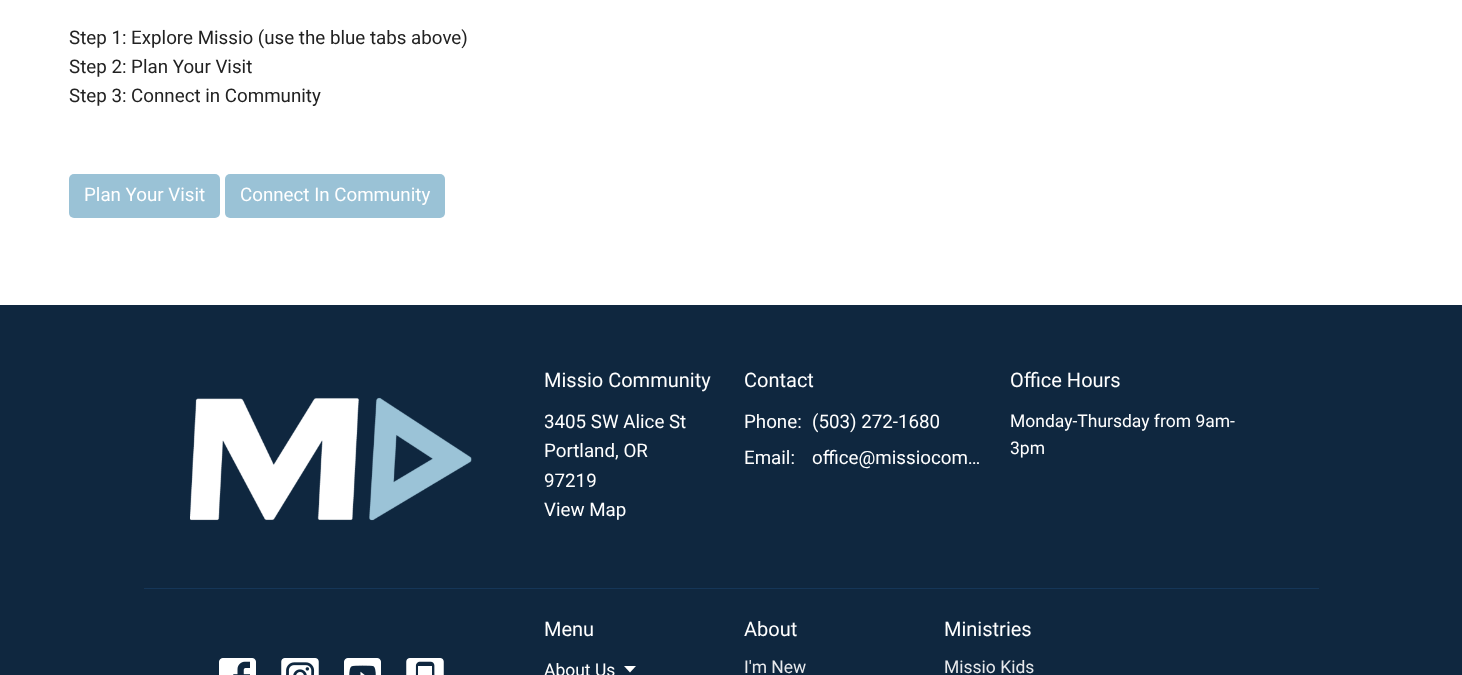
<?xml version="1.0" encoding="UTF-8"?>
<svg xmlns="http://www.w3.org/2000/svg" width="1462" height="675">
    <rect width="100%" height="100%" fill="#FFFFFF"/>
    <text font-family="Roboto" font-size="18.75" fill="#222222">
        <tspan x="69" y="44">Step 1: Explore Missio (use the blue tabs above)</tspan>
        <tspan x="69" y="73">Step 2: Plan Your Visit</tspan>
        <tspan x="69" y="102">Step 3: Connect in Community</tspan>
    </text>
    <rect x="69" y="174" width="151" height="44" rx="5" fill="#9AC2D6"/>
    <text x="84" y="201" font-family="Roboto" font-size="18.75" fill="#FFFFFF">Plan Your Visit</text>
    <rect x="225" y="174" width="220" height="44" rx="5" fill="#9AC2D6"/>
    <text x="240" y="201" font-family="Roboto" font-size="18.75" fill="#FFFFFF">Connect In Community</text>
    <rect x="0" y="305" width="1462" height="370" fill="#0F273F"/>
    <image x="190" y="397" width="282" height="124" href="img_01.png"/>
    <text x="544" y="387" font-family="Roboto" font-size="20" fill="#FFFFFF">Missio Community</text>
    <text font-family="Roboto" font-size="18.75" fill="#FFFFFF">
        <tspan x="544" y="428">3405 SW Alice St</tspan>
        <tspan x="544" y="457">Portland, OR</tspan>
        <tspan x="544" y="487">97219</tspan>
        <tspan x="544" y="516">View Map</tspan>
    </text>
    <text x="744" y="387" font-family="Roboto" font-size="20" fill="#FFFFFF">Contact</text>
    <text x="744" y="428" font-family="Roboto" font-size="18.75" fill="#FFFFFF">Phone:</text>
    <text x="812" y="428" font-family="Roboto" font-size="18.75" fill="#FFFFFF">(503) 272-1680</text>
    <text x="744" y="464" font-family="Roboto" font-size="18.75" fill="#FFFFFF">Email:</text>
    <text x="812" y="464" font-family="Roboto" font-size="18.75" fill="#FFFFFF">office@missiocom…</text>
    <text x="1010" y="387" font-family="Roboto" font-size="20" fill="#FFFFFF">Office Hours</text>
    <text font-family="Roboto" font-size="17.5" fill="#FFFFFF">
        <tspan x="1010" y="427">Monday-Thursday from 9am-</tspan>
        <tspan x="1010" y="454">3pm</tspan>
    </text>
    <rect x="144" y="588" width="1175" height="1" fill="#153658"/>
    <image x="219" y="658" width="37" height="17" href="img_02.png"/>
    <image x="281" y="658" width="38" height="17" href="img_03.png"/>
    <image x="344" y="658" width="37" height="17" href="img_04.png"/>
    <image x="406" y="658" width="38" height="17" href="img_05.png"/>
    <text x="544" y="636" font-family="Roboto" font-size="20" fill="#FFFFFF">Menu</text>
    <text x="544" y="676" font-family="Roboto" font-size="17.5" fill="#FFFFFF">About Us</text>
    <path d="M 624 666 L 630 672.5 L 636 666 Z" fill="#FFFFFF"/>
    <text x="744" y="636" font-family="Roboto" font-size="20" fill="#FFFFFF">About</text>
    <text x="744" y="673" font-family="Roboto" font-size="17.5" fill="#E7E9EC">I'm New</text>
    <text x="944" y="636" font-family="Roboto" font-size="20" fill="#FFFFFF">Ministries</text>
    <text x="944" y="673" font-family="Roboto" font-size="17.5" fill="#E7E9EC">Missio Kids</text>
</svg>
